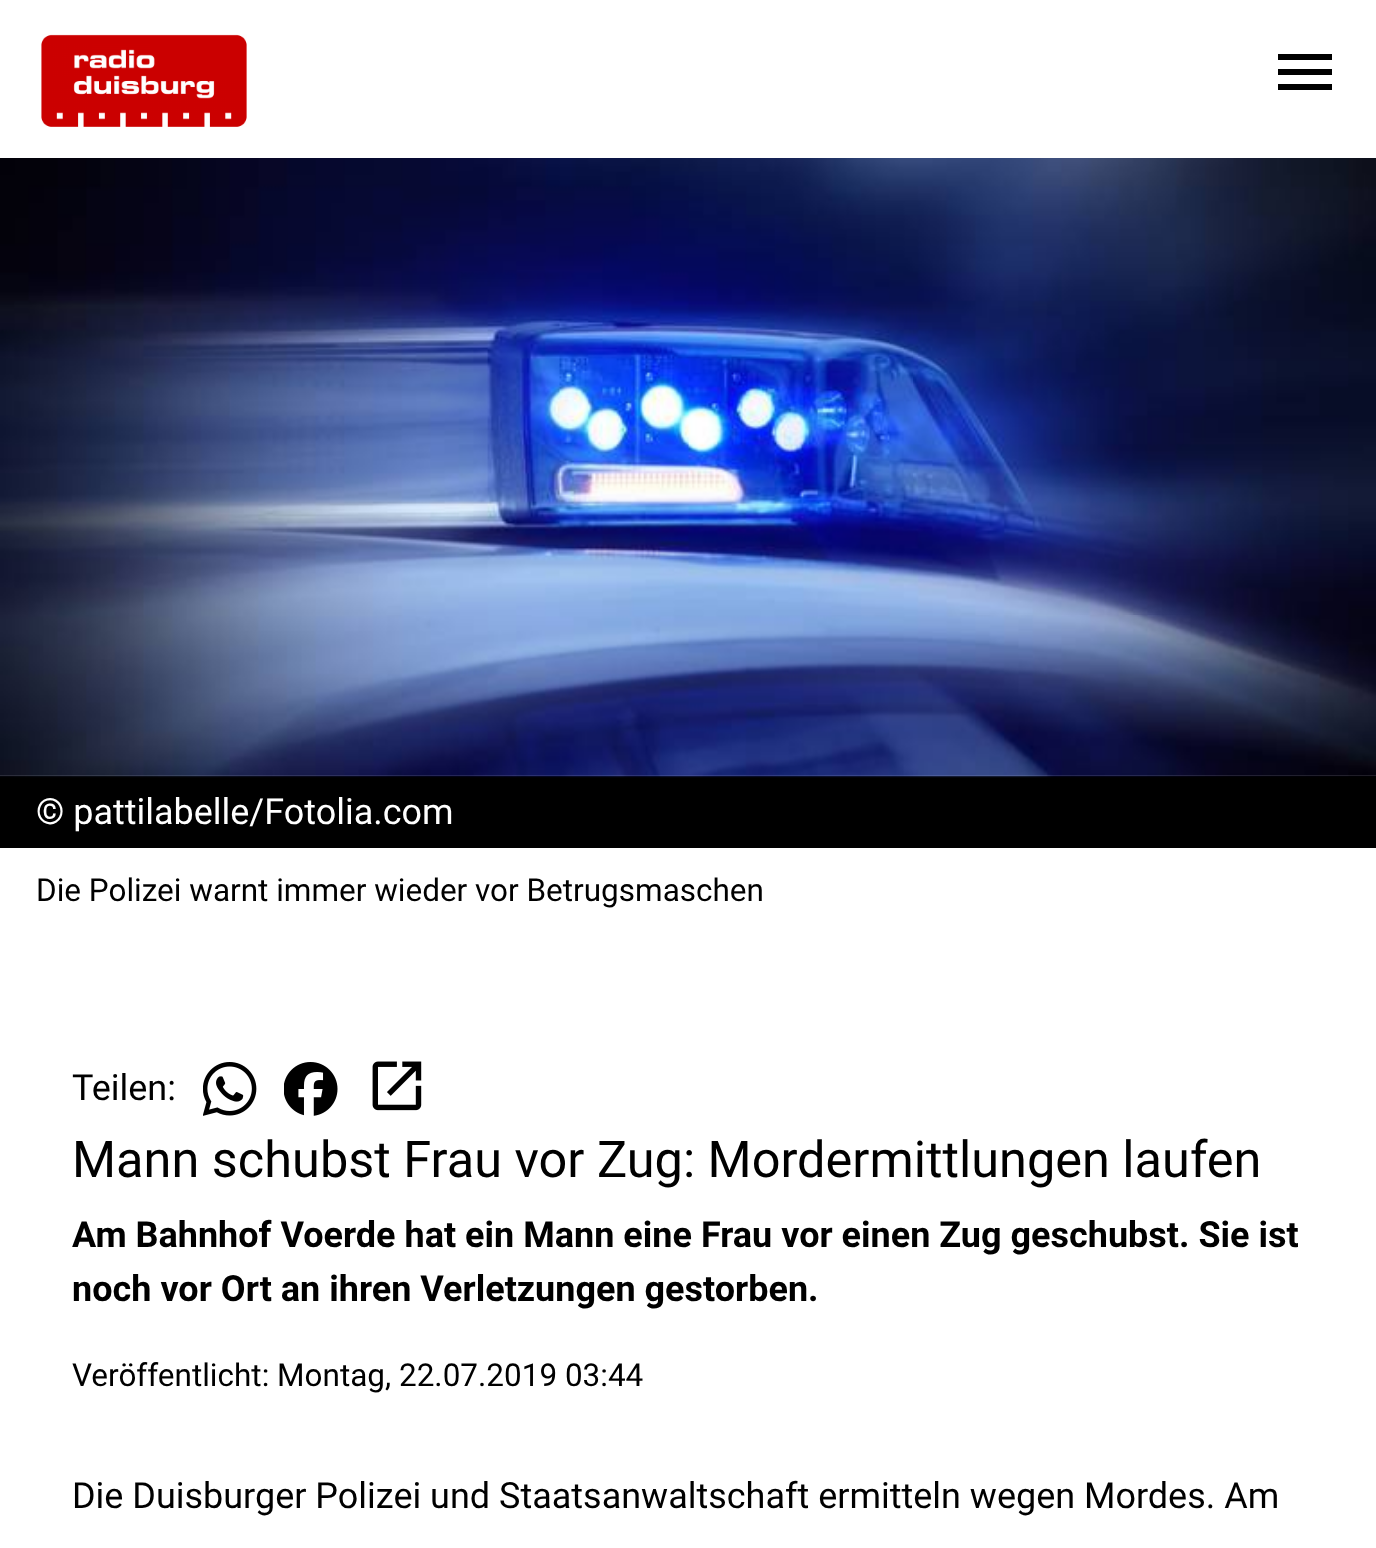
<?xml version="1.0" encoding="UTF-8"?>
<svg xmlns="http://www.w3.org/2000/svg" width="1376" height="1548">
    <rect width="100%" height="100%" fill="#FFFFFF"/>
    <image x="41" y="34" width="206" height="93" href="img_01.png"/>
    <path d="M 1278 90 V 84 H 1332 V 90 Z M 1278 75 V 69 H 1332 V 75 Z M 1278 60 V 54 H 1332 V 60 Z" fill="#000000"/>
    <rect x="0" y="776" width="1376" height="72" fill="#000000"/>
    <image x="0" y="158" width="1376" height="620" href="img_02.png"/>
    <text x="36" y="824" font-family="Roboto" font-size="36" fill="#FFFFFF">© pattilabelle/Fotolia.com</text>
    <text x="36" y="901" font-family="Roboto" font-size="31.5" fill="#000000">Die Polizei warnt immer wieder vor Betrugsmaschen</text>
    <text x="72" y="1100" font-family="Roboto" font-size="36" fill="#000000">Teilen:</text>
    <image x="203" y="1062" width="54" height="54" href="img_03.png"/>
    <image x="284" y="1062" width="54" height="54" href="img_04.png"/>
    <image x="372" y="1061" width="50" height="50" href="img_05.png"/>
    <text x="72" y="1177" font-family="Roboto" font-size="50.5" fill="#000000">Mann schubst Frau vor Zug: Mordermittlungen laufen</text>
    <text font-family="Roboto" font-size="36" font-weight="700" fill="#000000">
        <tspan x="72" y="1247">Am Bahnhof Voerde hat ein Mann eine Frau vor einen Zug geschubst. Sie ist</tspan>
        <tspan x="72" y="1301">noch vor Ort an ihren Verletzungen gestorben.</tspan>
    </text>
    <text x="72" y="1386" font-family="Roboto" font-size="31.5" fill="#000000">Veröffentlicht: Montag, 22.07.2019 03:44</text>
    <text x="72" y="1508" font-family="Roboto" font-size="36" fill="#000000">Die Duisburger Polizei und Staatsanwaltschaft ermitteln wegen Mordes. Am</text>
</svg>
